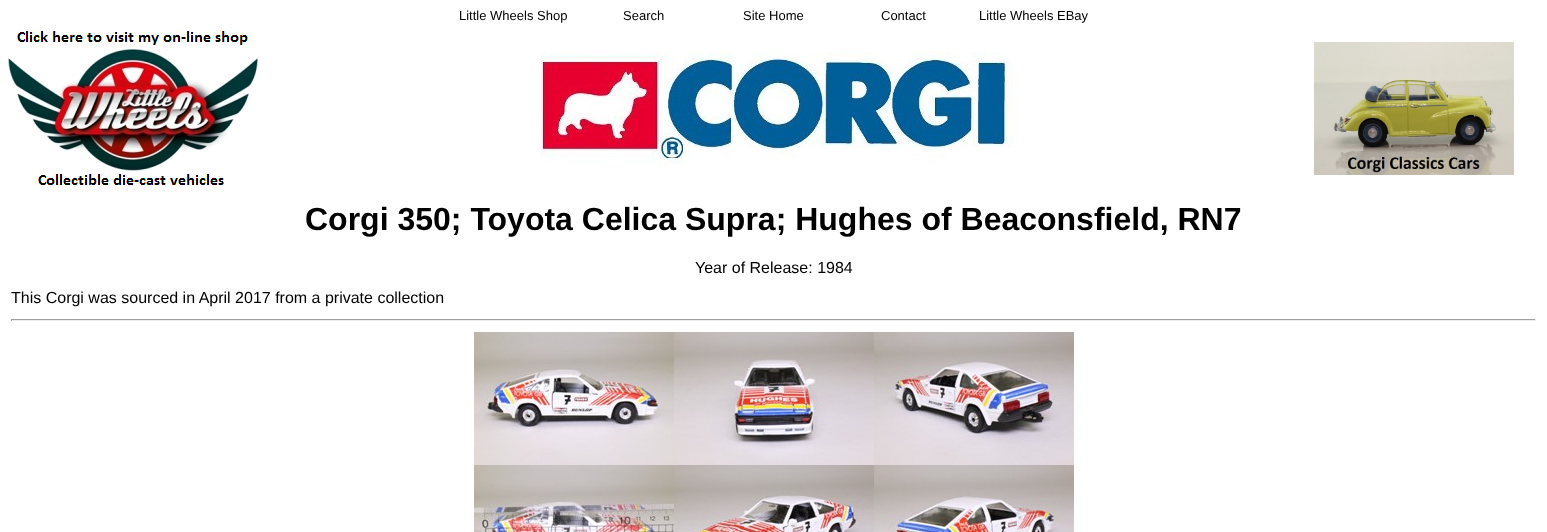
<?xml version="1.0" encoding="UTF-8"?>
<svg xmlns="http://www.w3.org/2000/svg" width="1547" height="532">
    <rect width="100%" height="100%" fill="#FFFFFF"/>
    <text x="459" y="20" font-family="Liberation Sans" font-size="13" fill="#000000">Little Wheels Shop</text>
    <text x="623" y="20" font-family="Liberation Sans" font-size="13" fill="#000000">Search</text>
    <text x="743" y="20" font-family="Liberation Sans" font-size="13" fill="#000000">Site Home</text>
    <text x="881" y="20" font-family="Liberation Sans" font-size="13" fill="#000000">Contact</text>
    <text x="979" y="20" font-family="Liberation Sans" font-size="13" fill="#000000">Little Wheels EBay</text>
    <image x="8" y="31" width="250" height="154" href="img_01.png"/>
    <image x="540" y="52" width="478" height="113" href="img_02.png"/>
    <image x="1314" y="42" width="200" height="133" href="img_03.png"/>
    <text x="305" y="230" font-family="Liberation Sans" font-size="32" font-weight="700" fill="#000000">Corgi 350; Toyota Celica Supra; Hughes of Beaconsfield, RN7</text>
    <text x="695" y="273" font-family="Liberation Sans" font-size="16" fill="#000000">Year of Release: 1984</text>
    <text x="11" y="303" font-family="Liberation Sans" font-size="16" fill="#000000">This Corgi was sourced in April 2017 from a private collection</text>
    <rect x="11" y="319" width="1525" height="1" fill="#9F9F9F"/>
    <rect x="1535" y="319" width="1" height="2" fill="#EEEEEE"/>
    <rect x="11" y="320" width="1525" height="1" fill="#EEEEEE"/>
    <rect x="11" y="319" width="1" height="2" fill="#9F9F9F"/>
    <image x="474" y="332" width="200" height="133" href="img_04.png"/>
    <image x="674" y="332" width="200" height="133" href="img_05.png"/>
    <image x="874" y="332" width="200" height="133" href="img_06.png"/>
    <image x="474" y="465" width="200" height="67" href="img_07.png"/>
    <image x="674" y="465" width="200" height="67" href="img_08.png"/>
    <image x="874" y="465" width="200" height="67" href="img_09.png"/>
</svg>
